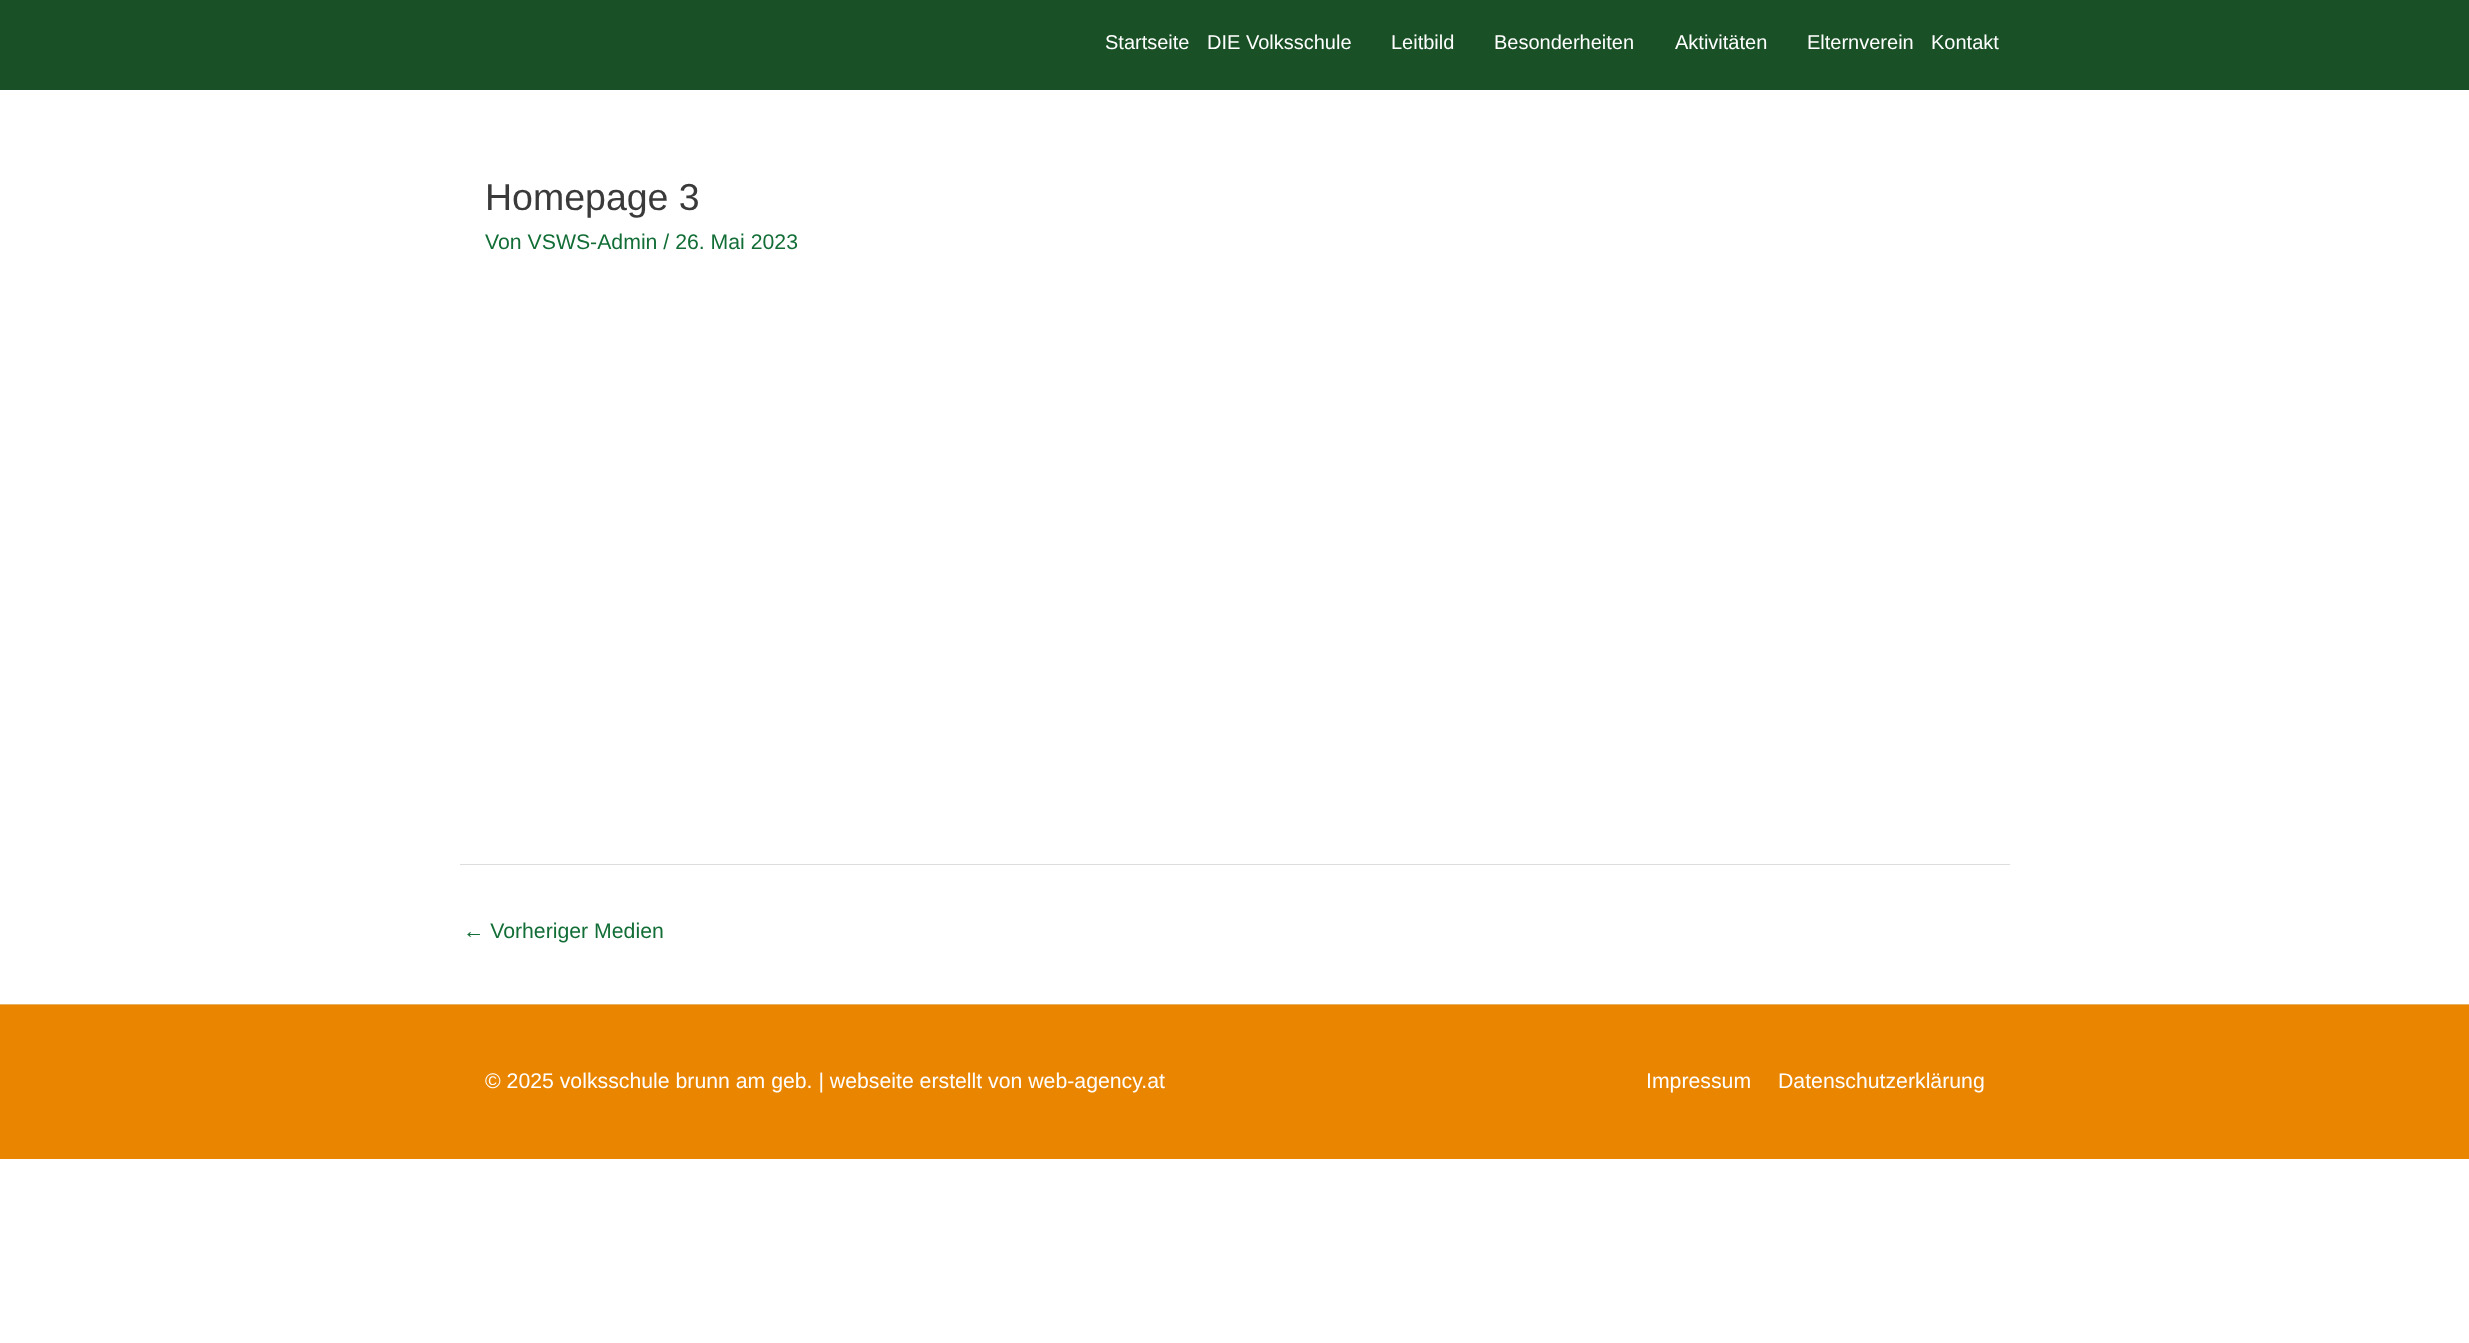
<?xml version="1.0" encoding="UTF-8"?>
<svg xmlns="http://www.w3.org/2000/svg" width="2469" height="1343">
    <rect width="100%" height="100%" fill="#FFFFFF"/>
    <rect x="0" y="0" width="2469" height="90" fill="#195025"/>
    <text x="1105" y="49" font-family="Liberation Sans" font-size="20" fill="#FFFFFF">Startseite</text>
    <text x="1207" y="49" font-family="Liberation Sans" font-size="20" fill="#FFFFFF">DIE Volksschule</text>
    <text x="1391" y="49" font-family="Liberation Sans" font-size="20" fill="#FFFFFF">Leitbild</text>
    <text x="1494" y="49" font-family="Liberation Sans" font-size="20" fill="#FFFFFF">Besonderheiten</text>
    <text x="1675" y="49" font-family="Liberation Sans" font-size="20" fill="#FFFFFF">Aktivitäten</text>
    <text x="1807" y="49" font-family="Liberation Sans" font-size="20" fill="#FFFFFF">Elternverein</text>
    <text x="1931" y="49" font-family="Liberation Sans" font-size="20" fill="#FFFFFF">Kontakt</text>
    <text x="485" y="210" font-family="Liberation Sans" font-size="37.5" fill="#3A3A3A">Homepage 3</text>
    <text x="485" y="249" font-family="Liberation Sans" font-size="21.25" fill="#126E36">Von VSWS-Admin / 26. Mai 2023</text>
    <rect x="460" y="864" width="1550" height="1" fill="#DDDDDD"/>
    <text x="463" y="938" font-family="Liberation Sans" font-size="21.25" fill="#126E36">← Vorheriger Medien</text>
    <rect x="0" y="1004" width="2469" height="1" fill="#EAB167"/>
    <rect x="0" y="1005" width="2469" height="154" fill="#EA8500"/>
    <text x="485" y="1088" font-family="Liberation Sans" font-size="21.25" fill="#FFFFFF">© 2025 volksschule brunn am geb. | webseite erstellt von web-agency.at</text>
    <text x="1646" y="1088" font-family="Liberation Sans" font-size="21.25" fill="#FFFFFF">Impressum</text>
    <text x="1778" y="1088" font-family="Liberation Sans" font-size="21.25" fill="#FFFFFF">Datenschutzerklärung</text>
</svg>
